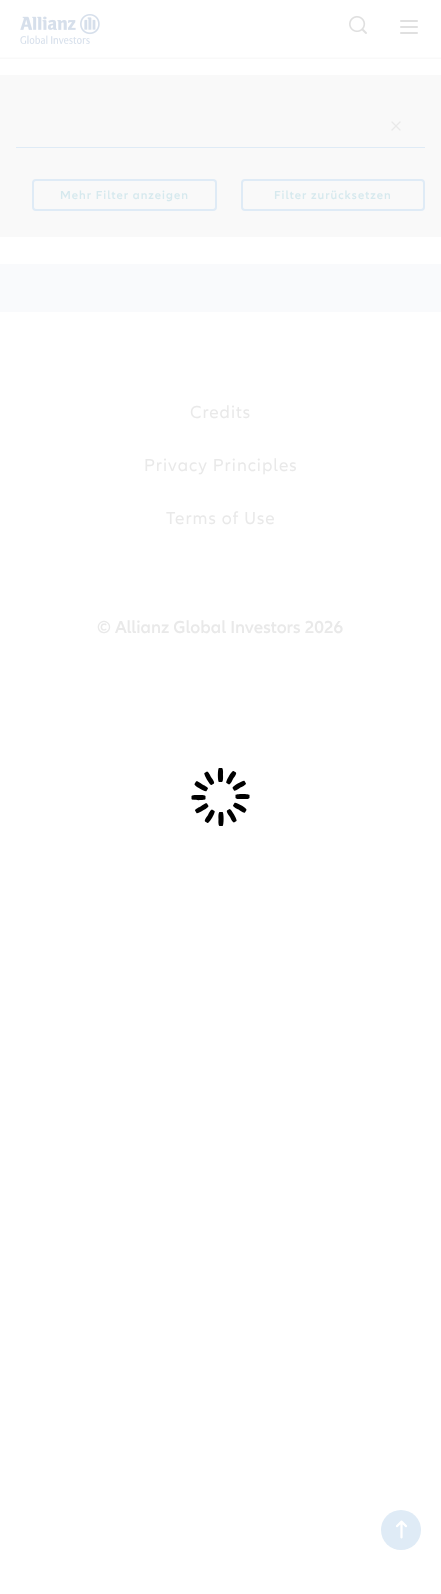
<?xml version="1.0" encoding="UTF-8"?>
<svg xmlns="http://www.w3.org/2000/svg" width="441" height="1594">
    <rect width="100%" height="100%" fill="#FFFFFF"/>
    <rect x="0" y="58" width="441" height="1" fill="#F9F9F9"/>
    <rect x="0" y="57" width="441" height="1" fill="#FCFCFC"/>
    <image x="20" y="14" width="80" height="30" href="img_01.png"/>
    <image x="349" y="15" width="18" height="19" href="img_02.png"/>
    <image x="400" y="20" width="18" height="14" href="img_03.png"/>
    <rect x="0" y="75" width="441" height="162" fill="#F9F9F9"/>
    <image x="391" y="121" width="10" height="10" href="img_04.png"/>
    <rect x="16" y="147" width="409" height="1" fill="#DFEBF6"/>
    <rect x="33" y="180" width="183" height="30" rx="3" fill="none" stroke="#DFEBF6" stroke-width="2"/>
    <text x="60" y="199" font-family="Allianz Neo" font-size="12" font-weight="600" letter-spacing="1" fill="#D6E9EE">Mehr Filter anzeigen</text>
    <rect x="242" y="180" width="182" height="30" rx="3" fill="none" stroke="#DFEBF6" stroke-width="2"/>
    <text x="274" y="199" font-family="Allianz Neo" font-size="12" font-weight="600" letter-spacing="1" fill="#D6E9EE">Filter zurücksetzen</text>
    <rect x="0" y="264" width="441" height="48" fill="#F9FAFC"/>
    <text x="190" y="418" font-family="Allianz Neo" font-size="18" letter-spacing="1" fill="#E9E9E9">Credits</text>
    <text x="144" y="471" font-family="Allianz Neo" font-size="18" letter-spacing="1" fill="#E9E9E9">Privacy Principles</text>
    <text x="166" y="524" font-family="Allianz Neo" font-size="18" letter-spacing="1" fill="#E9E9E9">Terms of Use</text>
    <text x="97" y="633" font-family="Allianz Neo" font-size="18" font-weight="600" fill="#E9E9E9">© Allianz Global Investors 2026</text>
    <circle cx="401" cy="1530" r="20" fill="#DFEBF6"/>
    <image x="395" y="1520" width="13" height="19" href="img_05.png"/>
    <path d="M 219 768 H 222 C 223.5 769 223 774 223 775 C 223 776 223.5 781 222 782 H 219 C 217.5 782 217.5 768 219 768 Z M 233.5 771 L 236 772.5 C 237 774 233.5 778 233 779 C 232.5 780 230.5 784.5 229 784.5 L 226.5 783 C 225 782 232 770 233.5 771 Z" fill="#000000"/>
    <path d="M 244.5 781 L 246 783.5 C 246 785 241.5 787 240.5 787.5 C 239.5 788 235.5 791.5 234 790.5 L 232.5 788 C 232 786.5 244 779.5 244.5 781 Z M 249.5 795 V 798 C 248.5 799.5 243.5 799 242.5 799 C 241.5 799 236.5 799.5 235.5 798 V 795 C 235.5 793.5 249.5 793.5 249.5 795 Z M 246.5 810 L 245 812.5 C 243.5 813.5 239.5 810 238.5 809.5 C 237.5 809 233 807 233 805.5 L 234.5 803 C 235.5 801.5 247.5 808.5 246.5 810 Z" fill="#000000"/>
    <path d="M 236.5 821 L 234 822.5 C 232.5 822.5 230.5 818 230 817 C 229.5 816 226 812 227 810.5 L 229.5 809 C 231 808.5 238 820.5 236.5 821 Z M 222.5 826 H 219.5 C 218 825 218.5 820 218.5 819 C 218.5 818 218 813 219.5 812 H 222.5 C 224 812 224 826 222.5 826 Z M 207.5 823 L 205 821.5 C 204 820 207.5 816 208 815 C 208.5 814 210.5 809.5 212 809.5 L 214.5 811 C 216 812 209 824 207.5 823 Z" fill="#000000"/>
    <path d="M 196.5 813 L 195 810.5 C 195 809 199.5 807 200.5 806.5 C 201.5 806 205.5 802.5 207 803.5 L 208.5 806 C 209 807.5 197 814.5 196.5 813 Z M 191.5 799 V 796 C 192.5 794.5 197.5 795 198.5 795 C 199.5 795 204.5 794.5 205.5 796 V 799 C 205.5 800.5 191.5 800.5 191.5 799 Z M 194.5 784 L 196 781.5 C 197.5 780.5 201.5 784 202.5 784.5 C 203.5 785 208 787 208 788.5 L 206.5 791 C 205.5 792.5 193.5 785.5 194.5 784 Z" fill="#000000"/>
    <path d="M 204.5 773 L 207 771.5 C 208.5 771.5 210.5 776 211 777 C 211.5 778 215 782 214 783.5 L 211.5 785 C 210 785.5 203 773.5 204.5 773 Z" fill="#000000"/>
</svg>
